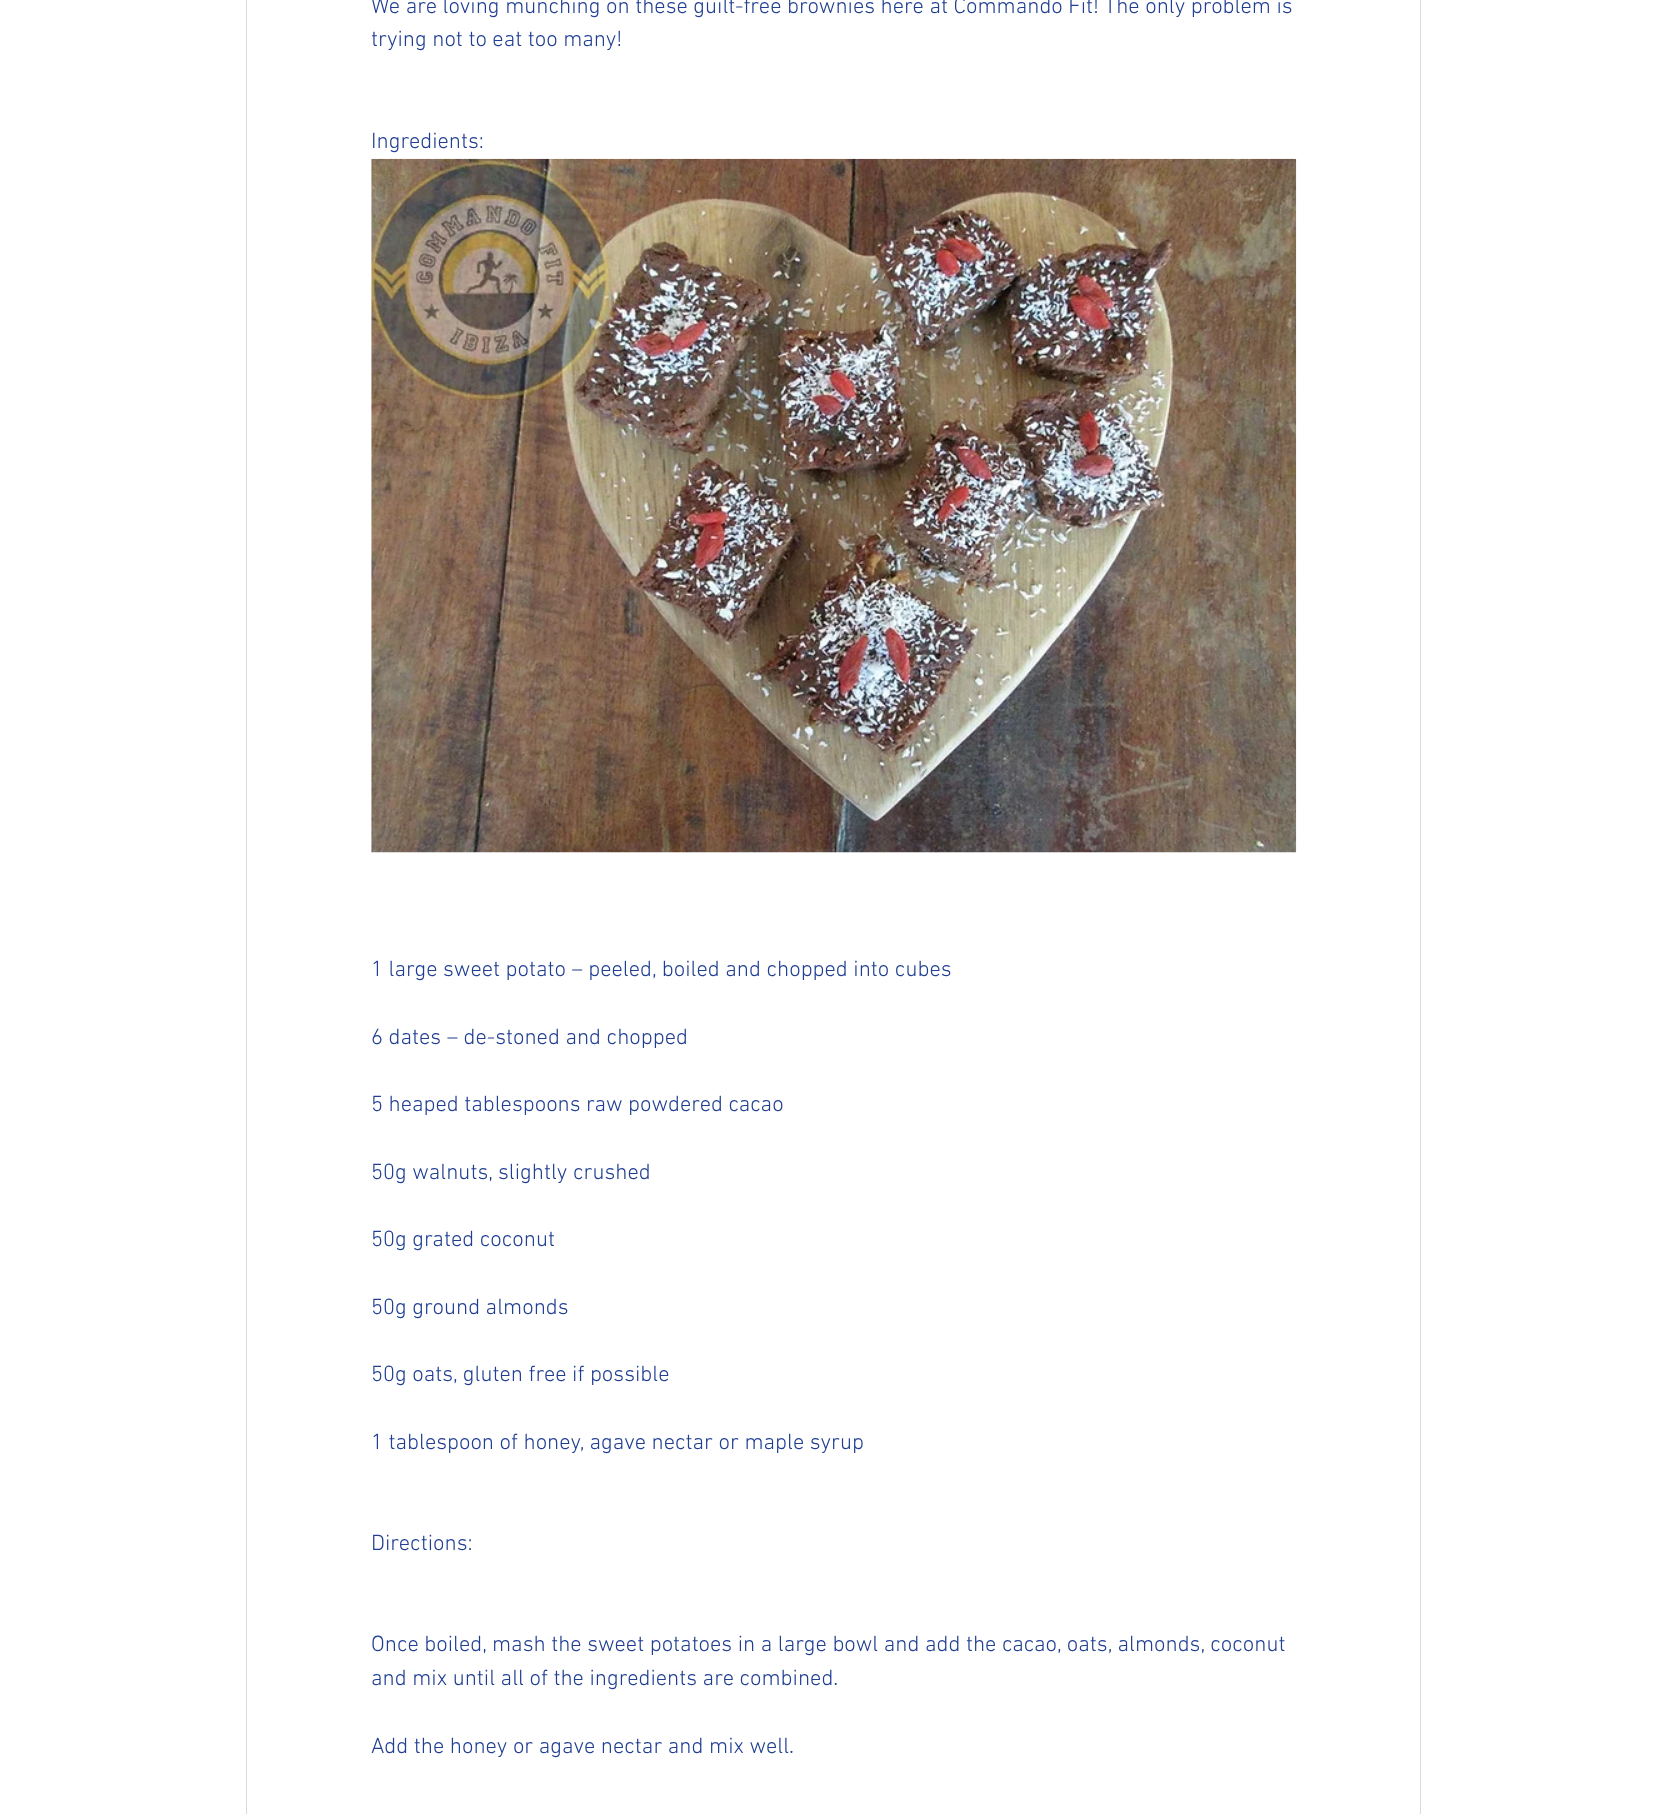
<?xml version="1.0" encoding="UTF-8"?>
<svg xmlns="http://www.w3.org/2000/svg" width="1667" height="1814">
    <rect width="100%" height="100%" fill="#FFFFFF"/>
    <rect x="246.5" y="-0.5" width="1174" height="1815" fill="none" stroke="#D9D9D9"/>
    <text font-family="'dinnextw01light'" font-size="22.5" font-weight="300" fill="#213F92">
        <tspan x="371" y="13">We are loving munching on these guilt-free brownies here at Commando Fit! The only problem is</tspan>
        <tspan x="371" y="46">trying not to eat too many!</tspan>
    </text>
    <text x="371" y="148" font-family="'dinnextw01light'" font-size="22.5" font-weight="300" fill="#213F92">Ingredients:</text>
    <image x="371" y="158" width="926" height="695" href="img_01.png"/>
    <text x="371" y="976" font-family="'dinnextw01light'" font-size="22.5" font-weight="300" fill="#213F92">1 large sweet potato – peeled, boiled and chopped into cubes</text>
    <text x="371" y="1044" font-family="'dinnextw01light'" font-size="22.5" font-weight="300" fill="#213F92">6 dates – de-stoned and chopped</text>
    <text x="371" y="1111" font-family="'dinnextw01light'" font-size="22.5" font-weight="300" fill="#213F92">5 heaped tablespoons raw powdered cacao</text>
    <text x="371" y="1179" font-family="'dinnextw01light'" font-size="22.5" font-weight="300" fill="#213F92">50g walnuts, slightly crushed</text>
    <text x="371" y="1246" font-family="'dinnextw01light'" font-size="22.5" font-weight="300" fill="#213F92">50g grated coconut</text>
    <text x="371" y="1314" font-family="'dinnextw01light'" font-size="22.5" font-weight="300" fill="#213F92">50g ground almonds</text>
    <text x="371" y="1381" font-family="'dinnextw01light'" font-size="22.5" font-weight="300" fill="#213F92">50g oats, gluten free if possible</text>
    <text x="371" y="1449" font-family="'dinnextw01light'" font-size="22.5" font-weight="300" fill="#213F92">1 tablespoon of honey, agave nectar or maple syrup</text>
    <text x="371" y="1550" font-family="'dinnextw01light'" font-size="22.5" font-weight="300" fill="#213F92">Directions:</text>
    <text font-family="'dinnextw01light'" font-size="22.5" font-weight="300" fill="#213F92">
        <tspan x="371" y="1651">Once boiled, mash the sweet potatoes in a large bowl and add the cacao, oats, almonds, coconut</tspan>
        <tspan x="371" y="1685">and mix until all of the ingredients are combined.</tspan>
    </text>
    <text x="371" y="1753" font-family="'dinnextw01light'" font-size="22.5" font-weight="300" fill="#213F92">Add the honey or agave nectar and mix well.</text>
</svg>
